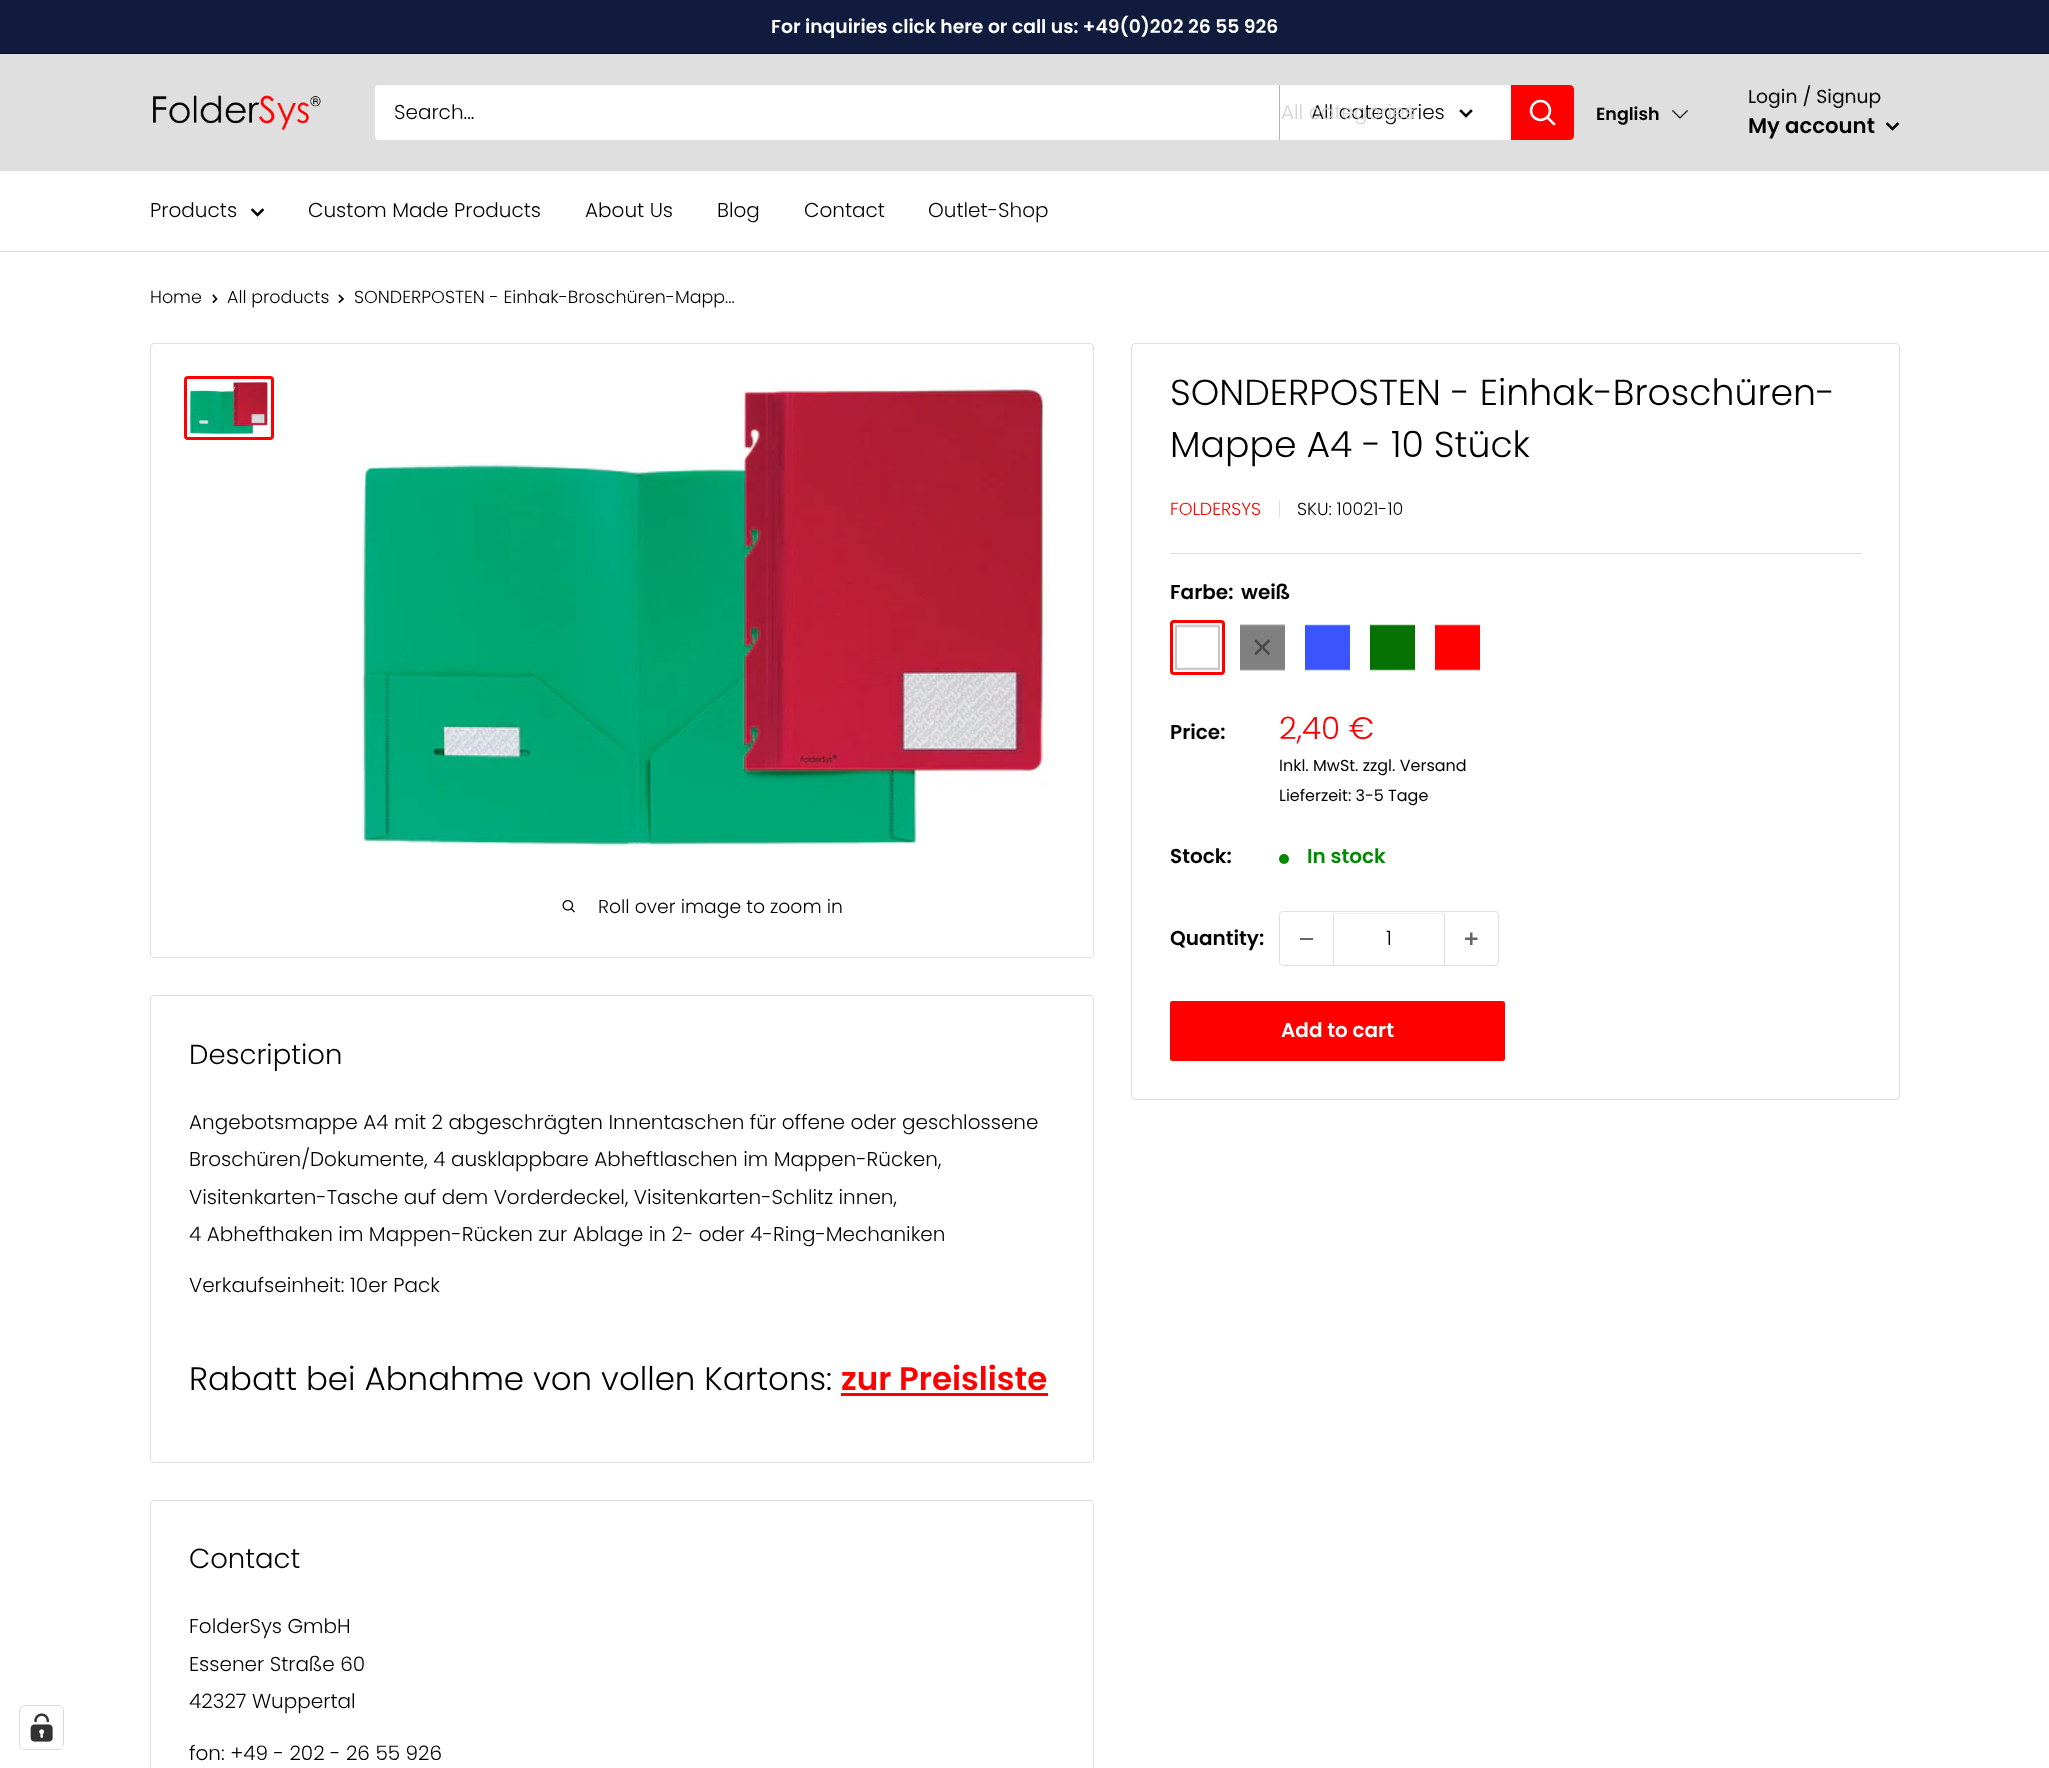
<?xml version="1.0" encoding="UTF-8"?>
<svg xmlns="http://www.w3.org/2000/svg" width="2049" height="1768">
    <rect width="100%" height="100%" fill="#FFFFFF"/>
    <rect x="0" y="0" width="2049" height="53" fill="#101B3E"/>
    <rect x="0" y="53" width="2049" height="1" fill="#0B132B"/>
    <text x="771" y="33" font-family="Poppins" font-size="18.75" font-weight="600" fill="#FFFFFF">For inquiries click here or call us: +49(0)202 26 55 926</text>
    <rect x="0" y="54" width="2049" height="117" fill="#DFDFDF"/>
    <image x="153" y="95" width="168" height="35" href="img_01.png"/>
    <rect x="375" y="85" width="1199" height="55" rx="4" fill="#FFFFFF"/>
    <text x="394" y="119" font-family="Poppins" font-size="20" font-weight="300" fill="#000000">Search...</text>
    <rect x="1279" y="85" width="1" height="55" fill="#B3B3B3"/>
    <text x="1311" y="119" font-family="Poppins" font-size="20" font-weight="300" fill="#000000">All categories</text>
    <text x="1281" y="119" font-family="Poppins" font-size="20" font-weight="300" fill="#D4D4D4">All categories</text>
    <path d="M 1471 111 L 1466 116 L 1461 111" fill="none" stroke="#000000" stroke-width="2.5" stroke-linecap="square"/>
    <path d="M 1511 85 H 1570 C 1572 85 1574 87 1574 89 V 136 C 1574 138 1572 140 1570 140 H 1511 Z" fill="#FF0000"/>
    <path d="M 1554 124 L 1547.5 117.5" fill="none" stroke="#FFFFFF" stroke-width="2.5" stroke-linecap="square"/>
    <circle cx="1540.5" cy="110.5" r="9.5" fill="none" stroke="#FFFFFF" stroke-width="2.5"/>
    <text x="1596" y="120" font-family="Poppins" font-size="17.5" font-weight="600" fill="#000000">English</text>
    <path d="M 1672.5 110.5 L 1680 118 L 1687.5 110.5" fill="none" stroke="#000000" stroke-width="1.2"/>
    <text x="1748" y="103" font-family="Poppins" font-size="18.75" fill="#000000">Login / Signup</text>
    <text x="1748" y="133" font-family="Poppins" font-size="21.25" font-weight="600" fill="#000000">My account</text>
    <path d="M 1897.5 124 L 1892.5 129 L 1887.5 124" fill="none" stroke="#000000" stroke-width="2.5" stroke-linecap="square"/>
    <rect x="0" y="251" width="2049" height="1" fill="#DFDFDF"/>
    <text x="150" y="217" font-family="Poppins" font-size="20" font-weight="300" fill="#000000">Products</text>
    <path d="M 262.5 210 L 257.5 215 L 252.5 210" fill="none" stroke="#000000" stroke-width="2.5" stroke-linecap="square"/>
    <text x="308" y="217" font-family="Poppins" font-size="20" font-weight="300" fill="#000000">Custom Made Products</text>
    <text x="585" y="217" font-family="Poppins" font-size="20" font-weight="300" fill="#000000">About Us</text>
    <text x="717" y="217" font-family="Poppins" font-size="20" font-weight="300" fill="#000000">Blog</text>
    <text x="804" y="217" font-family="Poppins" font-size="20" font-weight="300" fill="#000000">Contact</text>
    <text x="928" y="217" font-family="Poppins" font-size="20" font-weight="300" fill="#000000">Outlet-Shop</text>
    <rect x="19.5" y="1705.5" width="44" height="44" rx="5.5" fill="none" stroke="#D9D9D9"/>
    <rect x="20" y="1706" width="43" height="43" rx="5" fill="#FFFFFF"/>
    <image x="30" y="1713" width="23" height="29" href="img_02.png"/>
    <text x="150" y="303" font-family="Poppins" font-size="17.5" font-weight="300" fill="#000000">Home</text>
    <path d="M 213.5 295.5 L 216.5 299 L 213.5 302" fill="none" stroke="#000000" stroke-width="1.7" stroke-linecap="square"/>
    <text x="227" y="303" font-family="Poppins" font-size="17.5" font-weight="300" fill="#000000">All products</text>
    <path d="M 339.5 295.5 L 343 299 L 339.5 302" fill="none" stroke="#000000" stroke-width="1.7" stroke-linecap="square"/>
    <text x="354" y="303" font-family="Poppins" font-size="17.5" font-weight="300" fill="#000000">SONDERPOSTEN - Einhak-Broschüren-Mapp...</text>
    <rect x="150.5" y="343.5" width="943" height="614" rx="3.5" fill="none" stroke="#DFDFDF"/>
    <rect x="185.5" y="377.5" width="87" height="61" rx="2.5" fill="none" stroke="#FF0000" stroke-width="3"/>
    <image x="189" y="381" width="79" height="54" href="img_03.png"/>
    <image x="361" y="381" width="688" height="467" href="img_04.png"/>
    <image x="562" y="900" width="13" height="13" href="img_05.png"/>
    <text x="598" y="913" font-family="Poppins" font-size="18.75" font-weight="300" fill="#000000">Roll over image to zoom in</text>
    <rect x="1131.5" y="343.5" width="768" height="756" rx="3.5" fill="none" stroke="#DFDFDF"/>
    <text font-family="Poppins" font-size="36.25" font-weight="300" fill="#000000">
        <tspan x="1170" y="405">SONDERPOSTEN - Einhak-Broschüren-</tspan>
        <tspan x="1170" y="457">Mappe A4 - 10 Stück</tspan>
    </text>
    <text x="1170" y="515" font-family="Poppins" font-size="17.5" font-weight="300" fill="#FF0000">FOLDERSYS</text>
    <rect x="1279" y="501" width="1" height="17" fill="#DFDFDF"/>
    <text x="1297" y="515" font-family="Poppins" font-size="17.5" font-weight="300" fill="#000000">SKU: 10021-10</text>
    <rect x="1170" y="553" width="691" height="1" fill="#DFDFDF"/>
    <text x="1170" y="599" font-family="Poppins" font-size="20" font-weight="600" fill="#000000">Farbe:</text>
    <text x="1241" y="599" font-family="Poppins" font-size="20" font-weight="600" fill="#000000">weiß</text>
    <image x="1175" y="624" width="45" height="47" href="img_06.png"/>
    <rect x="1171.5" y="621.5" width="52" height="52" rx="2.5" fill="none" stroke="#FF0000" stroke-width="3"/>
    <image x="1240" y="624" width="45" height="47" href="img_07.png"/>
    <path d="M 1268.5 641 L 1256 653.5 M 1256 641 L 1268.5 653.5" fill="none" stroke="#4A4A4A" stroke-width="2.5" stroke-linecap="square"/>
    <image x="1305" y="624" width="45" height="47" href="img_08.png"/>
    <image x="1370" y="624" width="45" height="47" href="img_09.png"/>
    <image x="1435" y="624" width="45" height="47" href="img_10.png"/>
    <text x="1170" y="739" font-family="Poppins" font-size="20" font-weight="600" fill="#000000">Price:</text>
    <text x="1279" y="739" font-family="Poppins" font-size="31" font-weight="300" fill="#FF0000">2,40 €</text>
    <text font-family="Poppins" font-size="16" fill="#000000">
        <tspan x="1279" y="771">Inkl. MwSt. zzgl. Versand</tspan>
        <tspan x="1279" y="801">Lieferzeit: 3-5 Tage</tspan>
    </text>
    <text x="1170" y="863" font-family="Poppins" font-size="20" font-weight="600" fill="#000000">Stock:</text>
    <circle cx="1284" cy="859" r="5" fill="#008A00"/>
    <text x="1307" y="863" font-family="Poppins" font-size="20" font-weight="600" fill="#008A00">In stock</text>
    <text x="1170" y="945" font-family="Poppins" font-size="20" font-weight="600" fill="#000000">Quantity:</text>
    <rect x="1279.5" y="911.5" width="219" height="54" rx="3.5" fill="none" stroke="#DFDFDF"/>
    <rect x="1300" y="938" width="13" height="2" fill="#666666"/>
    <rect x="1334" y="913" width="110" height="1" fill="#F2F2F2"/>
    <rect x="1444" y="913" width="1" height="52" fill="#DFDFDF"/>
    <rect x="1333" y="913" width="1" height="52" fill="#DFDFDF"/>
    <text x="1386" y="945" font-family="Poppins" font-size="20" font-weight="300" fill="#000000">1</text>
    <image x="1465" y="932" width="13" height="13" href="img_11.png"/>
    <rect x="1170" y="1001" width="335" height="60" rx="2.5" fill="#FF0000"/>
    <text x="1281" y="1037" font-family="Poppins" font-size="20" font-weight="600" fill="#FFFFFF">Add to cart</text>
    <rect x="150.5" y="995.5" width="943" height="467" rx="3.5" fill="none" stroke="#DFDFDF"/>
    <text x="189" y="1064" font-family="Poppins" font-size="27.5" font-weight="300" fill="#000000">Description</text>
    <text font-family="Poppins" font-size="20" font-weight="300" fill="#000000">
        <tspan x="189" y="1129">Angebotsmappe A4 mit 2 abgeschrägten Innentaschen für offene oder geschlossene</tspan>
        <tspan x="189" y="1166">Broschüren/Dokumente, 4 ausklappbare Abheftlaschen im Mappen-Rücken,</tspan>
        <tspan x="189" y="1204">Visitenkarten-Tasche auf dem Vorderdeckel, Visitenkarten-Schlitz innen,</tspan>
        <tspan x="189" y="1241">4 Abhefthaken im Mappen-Rücken zur Ablage in 2- oder 4-Ring-Mechaniken</tspan>
    </text>
    <text x="189" y="1292" font-family="Poppins" font-size="20" font-weight="300" fill="#000000">Verkaufseinheit: 10er Pack</text>
    <text x="189" y="1390" font-family="Poppins" font-size="32.5" font-weight="300" fill="#000000">Rabatt bei Abnahme von vollen Kartons:</text>
    <text x="841" y="1390" font-family="Poppins" font-size="32.5" font-weight="600" fill="#FF0000">zur Preisliste</text>
    <rect x="841" y="1393" width="207" height="3" fill="#FF0000"/>
    <rect x="150.5" y="1500.5" width="943" height="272" rx="3.5" fill="none" stroke="#DFDFDF"/>
    <text x="189" y="1568" font-family="Poppins" font-size="27.5" font-weight="300" fill="#000000">Contact</text>
    <text font-family="Poppins" font-size="20" font-weight="300" fill="#000000">
        <tspan x="189" y="1633">FolderSys GmbH</tspan>
        <tspan x="189" y="1671">Essener Straße 60</tspan>
        <tspan x="189" y="1708">42327 Wuppertal</tspan>
    </text>
    <text x="189" y="1760" font-family="Poppins" font-size="20" font-weight="300" fill="#000000">fon: +49 - 202 - 26 55 926</text>
</svg>
